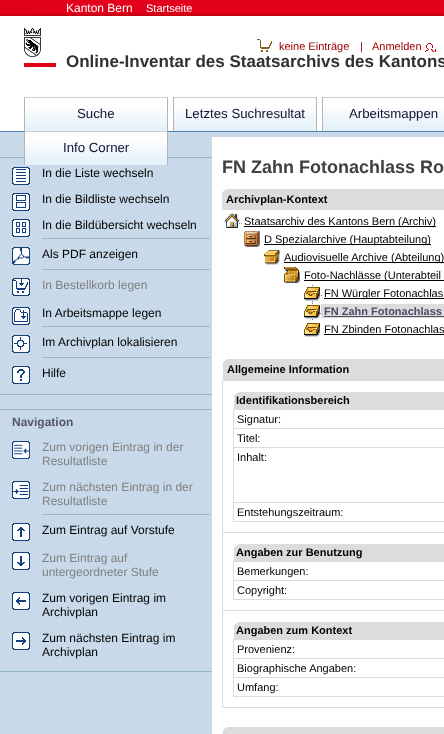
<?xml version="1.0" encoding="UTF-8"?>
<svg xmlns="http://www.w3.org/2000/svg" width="444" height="734">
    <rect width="100%" height="100%" fill="#FFFFFF"/>
    <image x="0" y="0" width="444" height="137" href="img_01.png"/>
    <text x="66" y="12" font-family="Liberation Sans" font-size="12" fill="#FFFFFF">Kanton Bern</text>
    <text x="146" y="12" font-family="Liberation Sans" font-size="11" fill="#FFFFFF">Startseite</text>
    <image x="24" y="28" width="32" height="39" href="img_02.png"/>
    <image x="257" y="39" width="15" height="13" href="img_03.png"/>
    <text x="279" y="50" font-family="Liberation Sans" font-size="11" fill="#A00000">keine Einträge</text>
    <text x="360" y="50" font-family="Liberation Sans" font-size="11" fill="#A00000">|</text>
    <text x="372" y="50" font-family="Liberation Sans" font-size="11" fill="#A00000">Anmelden</text>
    <image x="425" y="43" width="11" height="9" href="img_04.png"/>
    <text x="66" y="67" font-family="Liberation Sans" font-size="17" font-weight="700" fill="#323232">Online-Inventar des Staatsarchivs des Kantons</text>
    <image x="25" y="97" width="142" height="34" href="img_05.png"/>
    <rect x="0" y="137" width="212" height="597" fill="#C8D9E9"/>
    <rect x="0" y="157" width="212" height="1" fill="#97B8C7"/>
    <rect x="167" y="97" width="1" height="68" fill="#B4B4B4"/>
    <rect x="24" y="97" width="1" height="68" fill="#B4B4B4"/>
    <text x="77" y="118" font-family="Liberation Sans" font-size="13.25" fill="#101031">Suche</text>
    <image x="174" y="97" width="142" height="34" href="img_05.png"/>
    <rect x="316" y="97" width="1" height="34" fill="#B4B4B4"/>
    <rect x="173" y="97" width="1" height="34" fill="#B4B4B4"/>
    <text x="185" y="118" font-family="Liberation Sans" font-size="13.25" fill="#101031">Letztes Suchresultat</text>
    <image x="323" y="97" width="121" height="34" href="img_06.png"/>
    <rect x="322" y="97" width="1" height="34" fill="#B4B4B4"/>
    <text x="349" y="118" font-family="Liberation Sans" font-size="13.25" fill="#101031">Arbeitsmappen</text>
    <image x="25" y="131" width="142" height="34" href="img_05.png"/>
    <text x="63" y="152" font-family="Liberation Sans" font-size="13.25" fill="#101031">Info Corner</text>
    <rect x="0" y="394" width="212" height="1" fill="#97B8C7"/>
    <image x="12" y="167" width="18" height="18" href="img_07.png"/>
    <text x="42" y="177" font-family="Liberation Sans" font-size="12" fill="#000000">In die Liste wechseln</text>
    <image x="12" y="193" width="18" height="18" href="img_08.png"/>
    <text x="42" y="203" font-family="Liberation Sans" font-size="12" fill="#000000">In die Bildliste wechseln</text>
    <image x="12" y="219" width="18" height="18" href="img_09.png"/>
    <text x="42" y="229" font-family="Liberation Sans" font-size="12" fill="#000000">In die Bildübersicht wechseln</text>
    <image x="12" y="247" width="18" height="18" href="img_10.png"/>
    <rect x="42" y="238" width="168" height="1" fill="#97B8C7"/>
    <text x="42" y="258" font-family="Liberation Sans" font-size="12" fill="#000000">Als PDF anzeigen</text>
    <image x="12" y="278" width="18" height="18" href="img_11.png"/>
    <rect x="42" y="269" width="168" height="1" fill="#97B8C7"/>
    <text x="42" y="289" font-family="Liberation Sans" font-size="12" fill="#808080">In Bestellkorb legen</text>
    <image x="12" y="307" width="18" height="18" href="img_12.png"/>
    <text x="42" y="317" font-family="Liberation Sans" font-size="12" fill="#000000">In Arbeitsmappe legen</text>
    <image x="12" y="335" width="18" height="18" href="img_13.png"/>
    <rect x="42" y="326" width="168" height="1" fill="#97B8C7"/>
    <text x="42" y="346" font-family="Liberation Sans" font-size="12" fill="#000000">Im Archivplan lokalisieren</text>
    <image x="12" y="366" width="18" height="18" href="img_14.png"/>
    <rect x="42" y="357" width="168" height="1" fill="#97B8C7"/>
    <text x="42" y="377" font-family="Liberation Sans" font-size="12" fill="#000000">Hilfe</text>
    <rect x="0" y="409" width="212" height="1" fill="#97B8C7"/>
    <rect x="0" y="671" width="212" height="1" fill="#97B8C7"/>
    <text x="12" y="426" font-family="Liberation Sans" font-size="12" font-weight="700" fill="#555566">Navigation</text>
    <image x="12" y="441" width="18" height="18" href="img_15.png"/>
    <text font-family="Liberation Sans" font-size="12" fill="#808080">
        <tspan x="42" y="451">Zum vorigen Eintrag in der</tspan>
        <tspan x="42" y="465">Resultatliste</tspan>
    </text>
    <image x="12" y="481" width="18" height="18" href="img_16.png"/>
    <text font-family="Liberation Sans" font-size="12" fill="#808080">
        <tspan x="42" y="491">Zum nächsten Eintrag in der</tspan>
        <tspan x="42" y="505">Resultatliste</tspan>
    </text>
    <image x="12" y="523" width="18" height="18" href="img_17.png"/>
    <rect x="42" y="514" width="168" height="1" fill="#97B8C7"/>
    <text x="42" y="534" font-family="Liberation Sans" font-size="12" fill="#000000">Zum Eintrag auf Vorstufe</text>
    <image x="12" y="552" width="18" height="18" href="img_18.png"/>
    <text font-family="Liberation Sans" font-size="12" fill="#808080">
        <tspan x="42" y="562">Zum Eintrag auf</tspan>
        <tspan x="42" y="576">untergeordneter Stufe</tspan>
    </text>
    <image x="12" y="592" width="18" height="18" href="img_19.png"/>
    <text font-family="Liberation Sans" font-size="12" fill="#000000">
        <tspan x="42" y="602">Zum vorigen Eintrag im</tspan>
        <tspan x="42" y="616">Archivplan</tspan>
    </text>
    <image x="12" y="632" width="18" height="18" href="img_20.png"/>
    <text font-family="Liberation Sans" font-size="12" fill="#000000">
        <tspan x="42" y="642">Zum nächsten Eintrag im</tspan>
        <tspan x="42" y="656">Archivplan</tspan>
    </text>
    <text x="222" y="173" font-family="Liberation Sans" font-size="18" font-weight="700" fill="#404040">FN Zahn Fotonachlass Ro</text>
    <image x="222" y="189" width="222" height="21" href="img_21.png"/>
    <text x="226" y="203" font-family="Liberation Sans" font-size="11" font-weight="700" fill="#000000">Archivplan-Kontext</text>
    <image x="239" y="223" width="3" height="1" href="img_22.png"/>
    <image x="224" y="213" width="16" height="15" href="img_23.png"/>
    <rect x="244" y="226" width="192" height="1" fill="#000000"/>
    <text x="244" y="225" font-family="Liberation Sans" font-size="11" fill="#000000">Staatsarchiv des Kantons Bern (Archiv)</text>
    <image x="244" y="231" width="16" height="16" href="img_24.png"/>
    <rect x="264" y="244" width="167" height="1" fill="#000000"/>
    <text x="264" y="243" font-family="Liberation Sans" font-size="11" fill="#000000">D Spezialarchive (Hauptabteilung)</text>
    <image x="264" y="250" width="16" height="15" href="img_25.png"/>
    <rect x="284" y="262" width="160" height="1" fill="#000000"/>
    <text x="284" y="261" font-family="Liberation Sans" font-size="11" fill="#000000">Audiovisuelle Archive (Abteilung)</text>
    <image x="284" y="267" width="16" height="16" href="img_26.png"/>
    <rect x="304" y="280" width="140" height="1" fill="#000000"/>
    <text x="304" y="279" font-family="Liberation Sans" font-size="11" fill="#000000">Foto-Nachlässe (Unterabteil</text>
    <image x="312" y="285" width="1" height="17" href="img_27.png"/>
    <image x="321" y="295" width="1" height="1" href="img_28.png"/>
    <image x="304" y="287" width="16" height="14" href="img_29.png"/>
    <rect x="324" y="298" width="120" height="1" fill="#000000"/>
    <text x="324" y="297" font-family="Liberation Sans" font-size="11" fill="#000000">FN Würgler Fotonachlas</text>
    <image x="312" y="303" width="1" height="17" href="img_27.png"/>
    <image x="320" y="313" width="1" height="1" href="img_28.png"/>
    <image x="304" y="305" width="16" height="14" href="img_29.png"/>
    <rect x="321" y="304" width="123" height="14" fill="#DCDCDC"/>
    <text x="324" y="315" font-family="Liberation Sans" font-size="11" font-weight="700" fill="#4C4C66">FN Zahn Fotonachlass</text>
    <rect x="324" y="316" width="120" height="1" fill="#4C4C66"/>
    <image x="304" y="323" width="16" height="14" href="img_29.png"/>
    <text x="324" y="333" font-family="Liberation Sans" font-size="11" fill="#000000">FN Zbinden Fotonachlas</text>
    <rect x="324" y="334" width="120" height="1" fill="#000000"/>
    <image x="223" y="359" width="221" height="21" href="img_30.png"/>
    <text x="227" y="373" font-family="Liberation Sans" font-size="11" font-weight="700" fill="#000000">Allgemeine Information</text>
    <rect x="222" y="380" width="222" height="1" fill="#DCDCDC"/>
    <rect x="222" y="532" width="222" height="1" fill="#DCDCDC"/>
    <rect x="222" y="610" width="222" height="1" fill="#DCDCDC"/>
    <rect x="222" y="707" width="222" height="1" fill="#DCDCDC"/>
    <rect x="222" y="610" width="1" height="98" fill="#DCDCDC"/>
    <rect x="222" y="532" width="1" height="79" fill="#DCDCDC"/>
    <rect x="222" y="380" width="1" height="153" fill="#DCDCDC"/>
    <image x="234" y="392" width="210" height="17" href="img_31.png"/>
    <text x="236" y="404" font-family="Liberation Sans" font-size="11" font-weight="700" fill="#000000">Identifikationsbereich</text>
    <rect x="233" y="409" width="211" height="1" fill="#DCDCDC"/>
    <rect x="233" y="428" width="211" height="1" fill="#DCDCDC"/>
    <rect x="233" y="447" width="211" height="1" fill="#DCDCDC"/>
    <rect x="233" y="502" width="211" height="1" fill="#DCDCDC"/>
    <rect x="233" y="521" width="211" height="1" fill="#DCDCDC"/>
    <rect x="233" y="502" width="1" height="20" fill="#DCDCDC"/>
    <rect x="233" y="447" width="1" height="56" fill="#DCDCDC"/>
    <rect x="233" y="428" width="1" height="20" fill="#DCDCDC"/>
    <rect x="233" y="409" width="1" height="20" fill="#DCDCDC"/>
    <text font-family="Liberation Sans" font-size="11" fill="#000000">
        <tspan x="237" y="423">Signatur:</tspan>
        <tspan x="237" y="442">Titel:</tspan>
        <tspan x="237" y="461">Inhalt:</tspan>
    </text>
    <text x="237" y="516" font-family="Liberation Sans" font-size="11" fill="#000000">Entstehungszeitraum:</text>
    <image x="234" y="544" width="210" height="17" href="img_31.png"/>
    <text x="236" y="556" font-family="Liberation Sans" font-size="11" font-weight="700" fill="#000000">Angaben zur Benutzung</text>
    <rect x="233" y="561" width="211" height="1" fill="#DCDCDC"/>
    <rect x="233" y="580" width="211" height="1" fill="#DCDCDC"/>
    <rect x="233" y="599" width="211" height="1" fill="#DCDCDC"/>
    <rect x="233" y="580" width="1" height="20" fill="#DCDCDC"/>
    <rect x="233" y="561" width="1" height="20" fill="#DCDCDC"/>
    <text font-family="Liberation Sans" font-size="11" fill="#000000">
        <tspan x="237" y="575">Bemerkungen:</tspan>
        <tspan x="237" y="594">Copyright:</tspan>
    </text>
    <image x="234" y="622" width="210" height="17" href="img_31.png"/>
    <text x="236" y="634" font-family="Liberation Sans" font-size="11" font-weight="700" fill="#000000">Angaben zum Kontext</text>
    <rect x="233" y="639" width="211" height="1" fill="#DCDCDC"/>
    <rect x="233" y="658" width="211" height="1" fill="#DCDCDC"/>
    <rect x="233" y="677" width="211" height="1" fill="#DCDCDC"/>
    <rect x="233" y="696" width="211" height="1" fill="#DCDCDC"/>
    <rect x="233" y="677" width="1" height="20" fill="#DCDCDC"/>
    <rect x="233" y="658" width="1" height="20" fill="#DCDCDC"/>
    <rect x="233" y="639" width="1" height="20" fill="#DCDCDC"/>
    <text font-family="Liberation Sans" font-size="11" fill="#000000">
        <tspan x="237" y="653">Provenienz:</tspan>
        <tspan x="237" y="672">Biographische Angaben:</tspan>
        <tspan x="237" y="691">Umfang:</tspan>
    </text>
    <image x="223" y="727" width="221" height="7" href="img_32.png"/>
</svg>
